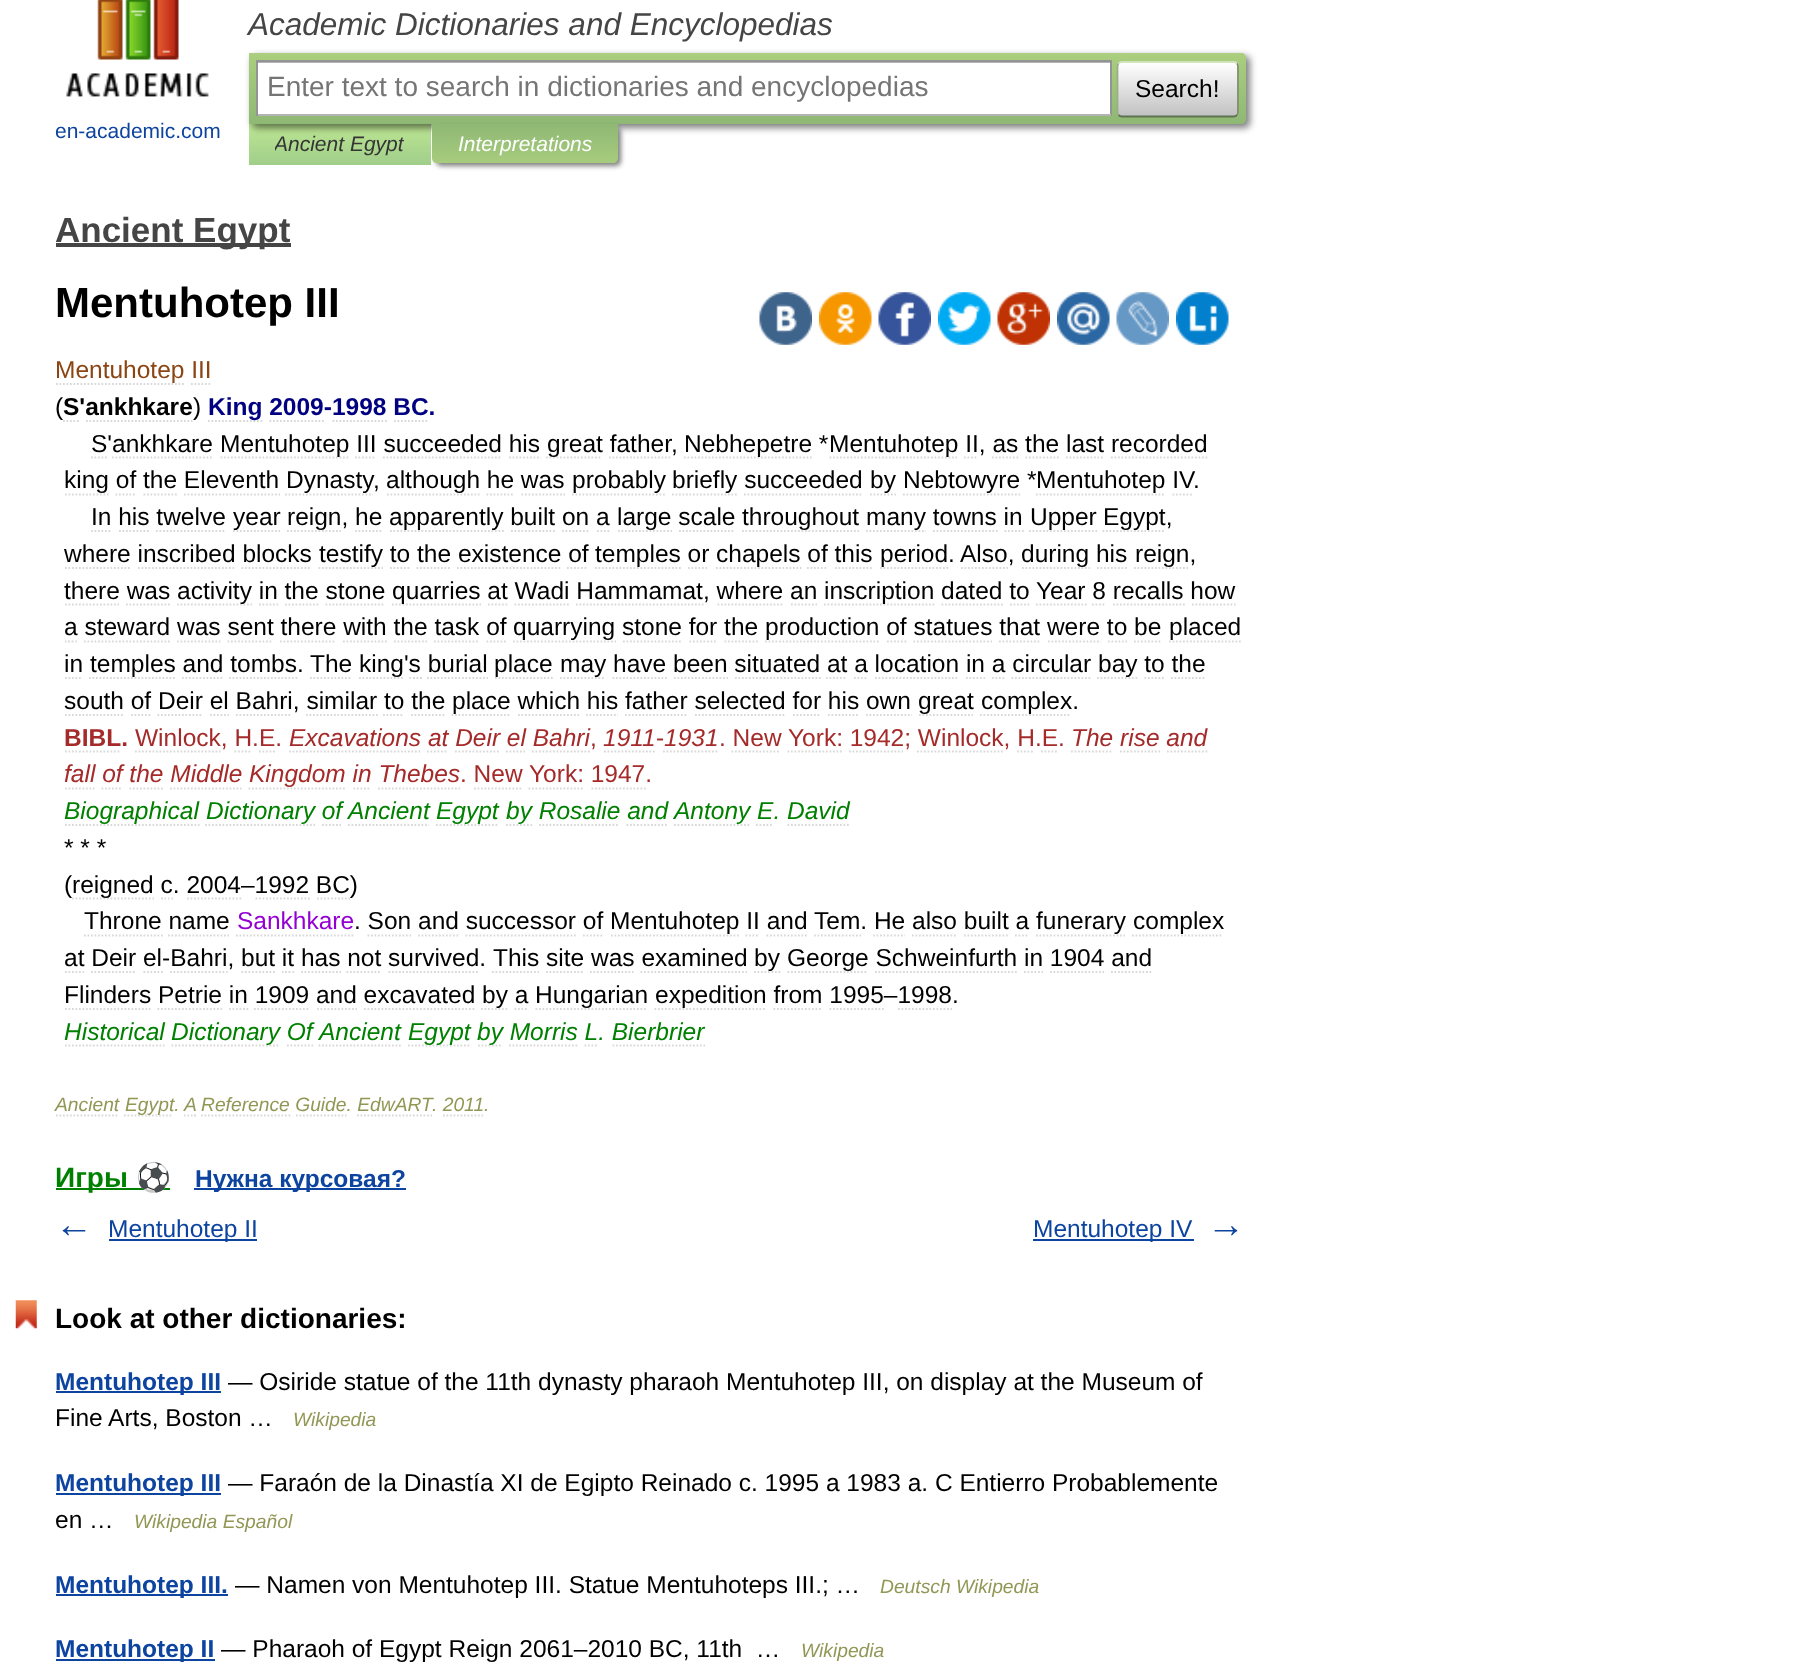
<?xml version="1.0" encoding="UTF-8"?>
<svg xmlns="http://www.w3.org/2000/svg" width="1807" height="1666">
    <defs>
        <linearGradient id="g1" gradientUnits="userSpaceOnUse" x1="340" y1="124" x2="340" y2="165"><stop offset="0" stop-color="#BDE693"/><stop offset="1" stop-color="#A0CE8A"/></linearGradient>
        <filter id="blur1" x="-50%" y="-200%" width="200%" height="500%"><feGaussianBlur stdDeviation="3.5"/></filter>
        <linearGradient id="g2" gradientUnits="userSpaceOnUse" x1="747" y1="52" x2="747" y2="124"><stop offset="0" stop-color="#ABCF7E"/><stop offset="1" stop-color="#8EB874"/></linearGradient>
        <clipPath id="clip1"><rect x="1117" y="61" width="122" height="56" rx="5"/></clipPath>
        <linearGradient id="g3" gradientUnits="userSpaceOnUse" x1="1178" y1="10" x2="1178" y2="63"><stop offset="0" stop-color="#FFFFFF"/><stop offset="1" stop-color="#C1C1C1"/></linearGradient>
        <linearGradient id="g4" gradientUnits="userSpaceOnUse" x1="1178" y1="63" x2="1178" y2="116"><stop offset="0" stop-color="#FFFFFF"/><stop offset="1" stop-color="#C1C1C1"/></linearGradient>
        <clipPath id="clip2"><rect x="275" y="124" width="129" height="41"/></clipPath>
        <filter id="blur2" x="-50%" y="-200%" width="200%" height="500%"><feGaussianBlur stdDeviation="2.5"/></filter>
        <linearGradient id="g5" gradientUnits="userSpaceOnUse" x1="525" y1="124" x2="525" y2="163"><stop offset="0" stop-color="#8FB875"/><stop offset="1" stop-color="#A7CC7D"/></linearGradient>
    </defs>
    <rect width="100%" height="100%" fill="#FFFFFF"/>
    <text x="248" y="35" font-family="Liberation Sans" font-size="31.5" font-style="italic" fill="#454545">Academic Dictionaries and Encyclopedias</text>
    <rect x="249" y="124" width="182" height="41" fill="url(#g1)"/>
    <rect x="252" y="56" width="998" height="72" rx="5" fill="#000000" fill-opacity="0.5" filter="url(#blur1)"/>
    <path d="M 249 53 H 1241 C 1244 53 1246 55 1246 58 V 119 C 1246 122 1244 124 1241 124 H 249 Z" fill="url(#g2)"/>
    <rect x="258" y="63" width="852" height="51" fill="#FFFFFF"/>
    <rect x="257" y="62" width="853" height="1" fill="#B3B3B3"/>
    <rect x="256" y="60" width="855" height="2" fill="#949494"/>
    <rect x="1110" y="60" width="2" height="56" fill="#949494"/>
    <rect x="256" y="114" width="855" height="2" fill="#B4B4B4"/>
    <rect x="256" y="60" width="2" height="56" fill="#949494"/>
    <text x="267" y="96" font-family="Liberation Sans" font-size="28" fill="#757575">Enter text to search in dictionaries and encyclopedias</text>
    <g clip-path="url(#clip1)">
        <rect x="1117" y="61" width="122" height="2" fill="url(#g3)"/>
        <rect x="1117" y="63" width="122" height="53" fill="url(#g4)"/>
    </g>
    <path d="M 1118.5 63.5 C 1119.5 62.5 1120.5 62 1122 62 H 1234 C 1235 62 1236 62.5 1237 63.5" fill="none" stroke="#D1E4BC" stroke-width="1.8"/>
    <path d="M 1237 63.5 C 1237.5 64 1238 65.5 1238 66.5 V 112 C 1238 113 1237.5 114.5 1237 115" fill="none" stroke="#7A8E69" stroke-width="1.8"/>
    <path d="M 1237 115 C 1236 116 1235 116.5 1234 116.5 H 1122 C 1120.5 116.5 1119.5 116 1118.5 115" fill="none" stroke="#5D7250" stroke-width="1.8"/>
    <path d="M 1118.5 115 C 1118 114.5 1117.5 113 1117.5 112 V 66.5 C 1117.5 65.5 1118 64 1118.5 63.5" fill="none" stroke="#9AAE89" stroke-width="1.8"/>
    <text x="1135" y="97" font-family="Liberation Sans" font-size="24.5" fill="#000000">Search!</text>
    <image x="66" y="0" width="143" height="97" href="img_01.png"/>
    <text x="55" y="138" font-family="Liberation Sans" font-size="21" fill="#0D44A0">en-academic.com</text>
    <g clip-path="url(#clip2)">
        <text x="274" y="151" font-family="Liberation Sans" font-size="21" font-style="italic" fill="#353535">Ancient Egypt</text>
    </g>
    <rect x="436" y="128" width="185" height="38" rx="5" fill="#000000" fill-opacity="0.5" filter="url(#blur2)"/>
    <path d="M 432 124 H 618 V 158 C 618 161 616 163 613 163 H 437 C 434 163 432 161 432 158 Z" fill="url(#g5)"/>
    <text x="458" y="151" font-family="Liberation Sans" font-size="21" font-style="italic" fill="#FFFFFF">Interpretations</text>
    <rect x="56" y="243" width="235" height="4" fill="#454545"/>
    <text x="55" y="242" font-family="Liberation Sans" font-size="35" font-weight="700" fill="#454545">Ancient Egypt</text>
    <text x="55" y="317" font-family="Liberation Sans" font-size="42" font-weight="700" fill="#000000">Mentuhotep III</text>
    <image x="759" y="292" width="53" height="53" href="img_02.png"/>
    <image x="819" y="292" width="53" height="53" href="img_03.png"/>
    <image x="878" y="292" width="53" height="53" href="img_04.png"/>
    <image x="938" y="292" width="53" height="53" href="img_05.png"/>
    <image x="997" y="292" width="53" height="53" href="img_06.png"/>
    <image x="1057" y="292" width="53" height="53" href="img_07.png"/>
    <image x="1116" y="292" width="53" height="53" href="img_08.png"/>
    <image x="1176" y="292" width="53" height="53" href="img_09.png"/>
    <path d="M 56 384 H 184" fill="none" stroke="#D9D9D9" stroke-width="1.8" stroke-dasharray="1.75 1.75"/>
    <text x="55" y="378" font-family="Liberation Sans" font-size="24.5" fill="#8B4513">Mentuhotep III</text>
    <path d="M 191 384 H 212" fill="none" stroke="#D9D9D9" stroke-width="1.8" stroke-dasharray="1.75 1.75"/>
    <text x="55" y="415" font-family="Liberation Sans" font-size="24.5" fill="#000000">(</text>
    <text x="63" y="415" font-family="Liberation Sans" font-size="24.5" font-weight="700" fill="#000000">S'ankhkare</text>
    <path d="M 63 421 H 80.5" fill="none" stroke="#D9D9D9" stroke-width="1.8" stroke-dasharray="1.75 1.75"/>
    <path d="M 86 421 H 192.5" fill="none" stroke="#D9D9D9" stroke-width="1.8" stroke-dasharray="1.75 1.75"/>
    <text x="193" y="415" font-family="Liberation Sans" font-size="24.5" fill="#000000">)</text>
    <path d="M 208 421 H 262.5" fill="none" stroke="#D9D9D9" stroke-width="1.8" stroke-dasharray="1.75 1.75"/>
    <text x="208" y="415" font-family="Liberation Sans" font-size="24.5" font-weight="700" fill="#000080">King 2009-1998 BC.</text>
    <path d="M 269.5 421 H 324" fill="none" stroke="#D9D9D9" stroke-width="1.8" stroke-dasharray="1.75 1.75"/>
    <path d="M 332.5 421 H 387" fill="none" stroke="#D9D9D9" stroke-width="1.8" stroke-dasharray="1.75 1.75"/>
    <path d="M 394 421 H 429" fill="none" stroke="#D9D9D9" stroke-width="1.8" stroke-dasharray="1.75 1.75"/>
    <text x="91" y="452" font-family="Liberation Sans" font-size="24.5" fill="#000000">S'ankhkare</text>
    <path d="M 91 457.5 H 107" fill="none" stroke="#D9D9D9" stroke-width="1.8" stroke-dasharray="1.75 1.75"/>
    <path d="M 220.5 457.5 H 350" fill="none" stroke="#D9D9D9" stroke-width="1.8" stroke-dasharray="1.75 1.75"/>
    <text x="220" y="452" font-family="Liberation Sans" font-size="24.5" fill="#000000">Mentuhotep III succeeded his</text>
    <path d="M 546 457.5 H 602" fill="none" stroke="#D9D9D9" stroke-width="1.8" stroke-dasharray="1.75 1.75"/>
    <text x="547" y="452" font-family="Liberation Sans" font-size="24.5" fill="#000000">great father</text>
    <text x="671" y="452" font-family="Liberation Sans" font-size="24.5" fill="#000000">,</text>
    <path d="M 684 457.5 H 812" fill="none" stroke="#D9D9D9" stroke-width="1.8" stroke-dasharray="1.75 1.75"/>
    <text x="684" y="452" font-family="Liberation Sans" font-size="24.5" fill="#000000">Nebhepetre *</text>
    <path d="M 829.5 457.5 H 957" fill="none" stroke="#D9D9D9" stroke-width="1.8" stroke-dasharray="1.75 1.75"/>
    <text x="829" y="452" font-family="Liberation Sans" font-size="24.5" fill="#000000">Mentuhotep II, as the last recorded</text>
    <path d="M 112 457.5 H 213.5" fill="none" stroke="#D9D9D9" stroke-width="1.8" stroke-dasharray="1.75 1.75"/>
    <path d="M 355 457.5 H 376" fill="none" stroke="#D9D9D9" stroke-width="1.8" stroke-dasharray="1.75 1.75"/>
    <path d="M 383 457.5 H 502" fill="none" stroke="#D9D9D9" stroke-width="1.8" stroke-dasharray="1.75 1.75"/>
    <path d="M 509 457.5 H 541" fill="none" stroke="#D9D9D9" stroke-width="1.8" stroke-dasharray="1.75 1.75"/>
    <path d="M 609 457.5 H 670" fill="none" stroke="#D9D9D9" stroke-width="1.8" stroke-dasharray="1.75 1.75"/>
    <path d="M 964 457.5 H 978 M 992 457.5 H 1018.5" fill="none" stroke="#D9D9D9" stroke-width="1.8" stroke-dasharray="1.75 1.75"/>
    <path d="M 1025.5 457.5 H 1059" fill="none" stroke="#D9D9D9" stroke-width="1.8" stroke-dasharray="1.75 1.75"/>
    <path d="M 1066 457.5 H 1104" fill="none" stroke="#D9D9D9" stroke-width="1.8" stroke-dasharray="1.75 1.75"/>
    <path d="M 1111 457.5 H 1207.5" fill="none" stroke="#D9D9D9" stroke-width="1.8" stroke-dasharray="1.75 1.75"/>
    <path d="M 65 494.5 H 108.5" fill="none" stroke="#D9D9D9" stroke-width="1.8" stroke-dasharray="1.75 1.75"/>
    <text x="64" y="488" font-family="Liberation Sans" font-size="24.5" fill="#000000">king of the Eleventh</text>
    <path d="M 285 494.5 H 373" fill="none" stroke="#D9D9D9" stroke-width="1.8" stroke-dasharray="1.75 1.75"/>
    <text x="286" y="488" font-family="Liberation Sans" font-size="24.5" fill="#000000">Dynasty</text>
    <text x="373" y="488" font-family="Liberation Sans" font-size="24.5" fill="#000000">,</text>
    <path d="M 387 494.5 H 479.5" fill="none" stroke="#D9D9D9" stroke-width="1.8" stroke-dasharray="1.75 1.75"/>
    <text x="386" y="488" font-family="Liberation Sans" font-size="24.5" fill="#000000">although he was</text>
    <path d="M 572 494.5 H 665" fill="none" stroke="#D9D9D9" stroke-width="1.8" stroke-dasharray="1.75 1.75"/>
    <text x="572" y="488" font-family="Liberation Sans" font-size="24.5" fill="#000000">probably</text>
    <path d="M 672 494.5 H 738.5" fill="none" stroke="#D9D9D9" stroke-width="1.8" stroke-dasharray="1.75 1.75"/>
    <text x="672" y="488" font-family="Liberation Sans" font-size="24.5" fill="#000000">briefly succeeded</text>
    <path d="M 870 494.5 H 896" fill="none" stroke="#D9D9D9" stroke-width="1.8" stroke-dasharray="1.75 1.75"/>
    <text x="870" y="488" font-family="Liberation Sans" font-size="24.5" fill="#000000">by</text>
    <path d="M 903 494.5 H 1020" fill="none" stroke="#D9D9D9" stroke-width="1.8" stroke-dasharray="1.75 1.75"/>
    <text x="903" y="488" font-family="Liberation Sans" font-size="24.5" fill="#000000">Nebtowyre *</text>
    <path d="M 1036 494.5 H 1165.5" fill="none" stroke="#D9D9D9" stroke-width="1.8" stroke-dasharray="1.75 1.75"/>
    <text x="1036" y="488" font-family="Liberation Sans" font-size="24.5" fill="#000000">Mentuhotep IV</text>
    <text x="1193" y="488" font-family="Liberation Sans" font-size="24.5" fill="#000000">.</text>
    <path d="M 115.5 494.5 H 136.5 M 143.5 494.5 H 177" fill="none" stroke="#D9D9D9" stroke-width="1.8" stroke-dasharray="1.75 1.75"/>
    <path d="M 184 494.5 H 280" fill="none" stroke="#D9D9D9" stroke-width="1.8" stroke-dasharray="1.75 1.75"/>
    <path d="M 486.5 494.5 H 514.5" fill="none" stroke="#D9D9D9" stroke-width="1.8" stroke-dasharray="1.75 1.75"/>
    <path d="M 521.5 494.5 H 565" fill="none" stroke="#D9D9D9" stroke-width="1.8" stroke-dasharray="1.75 1.75"/>
    <path d="M 744 494.5 H 863" fill="none" stroke="#D9D9D9" stroke-width="1.8" stroke-dasharray="1.75 1.75"/>
    <path d="M 1172.5 494.5 H 1193.5" fill="none" stroke="#D9D9D9" stroke-width="1.8" stroke-dasharray="1.75 1.75"/>
    <text x="91" y="525" font-family="Liberation Sans" font-size="24.5" fill="#000000">In his twelve</text>
    <path d="M 91 531 H 112" fill="none" stroke="#D9D9D9" stroke-width="1.8" stroke-dasharray="1.75 1.75"/>
    <path d="M 233 531 H 280" fill="none" stroke="#D9D9D9" stroke-width="1.8" stroke-dasharray="1.75 1.75"/>
    <text x="233" y="525" font-family="Liberation Sans" font-size="24.5" fill="#000000">year</text>
    <path d="M 287 531 H 341" fill="none" stroke="#D9D9D9" stroke-width="1.8" stroke-dasharray="1.75 1.75"/>
    <text x="287" y="525" font-family="Liberation Sans" font-size="24.5" fill="#000000">reign, he</text>
    <path d="M 390 531 H 504" fill="none" stroke="#D9D9D9" stroke-width="1.8" stroke-dasharray="1.75 1.75"/>
    <text x="389" y="525" font-family="Liberation Sans" font-size="24.5" fill="#000000">apparently built on a</text>
    <path d="M 618 531 H 672" fill="none" stroke="#D9D9D9" stroke-width="1.8" stroke-dasharray="1.75 1.75"/>
    <text x="617" y="525" font-family="Liberation Sans" font-size="24.5" fill="#000000">large scale</text>
    <path d="M 742 531 H 859" fill="none" stroke="#D9D9D9" stroke-width="1.8" stroke-dasharray="1.75 1.75"/>
    <text x="742" y="525" font-family="Liberation Sans" font-size="24.5" fill="#000000">throughout</text>
    <path d="M 866 531 H 926" fill="none" stroke="#D9D9D9" stroke-width="1.8" stroke-dasharray="1.75 1.75"/>
    <text x="866" y="525" font-family="Liberation Sans" font-size="24.5" fill="#000000">many towns in</text>
    <path d="M 1029 531 H 1097" fill="none" stroke="#D9D9D9" stroke-width="1.8" stroke-dasharray="1.75 1.75"/>
    <text x="1030" y="525" font-family="Liberation Sans" font-size="24.5" fill="#000000">Upper</text>
    <path d="M 1102.5 531 H 1165.5" fill="none" stroke="#D9D9D9" stroke-width="1.8" stroke-dasharray="1.75 1.75"/>
    <text x="1103" y="525" font-family="Liberation Sans" font-size="24.5" fill="#000000">Egypt,</text>
    <path d="M 119 531 H 150.5" fill="none" stroke="#D9D9D9" stroke-width="1.8" stroke-dasharray="1.75 1.75"/>
    <path d="M 156 531 H 226" fill="none" stroke="#D9D9D9" stroke-width="1.8" stroke-dasharray="1.75 1.75"/>
    <path d="M 355 531 H 383" fill="none" stroke="#D9D9D9" stroke-width="1.8" stroke-dasharray="1.75 1.75"/>
    <path d="M 511 531 H 556.5" fill="none" stroke="#D9D9D9" stroke-width="1.8" stroke-dasharray="1.75 1.75"/>
    <path d="M 562 531 H 590 M 597 531 H 611" fill="none" stroke="#D9D9D9" stroke-width="1.8" stroke-dasharray="1.75 1.75"/>
    <path d="M 679 531 H 735" fill="none" stroke="#D9D9D9" stroke-width="1.8" stroke-dasharray="1.75 1.75"/>
    <path d="M 933 531 H 997.5" fill="none" stroke="#D9D9D9" stroke-width="1.8" stroke-dasharray="1.75 1.75"/>
    <path d="M 1004.5 531 H 1024" fill="none" stroke="#D9D9D9" stroke-width="1.8" stroke-dasharray="1.75 1.75"/>
    <text x="64" y="562" font-family="Liberation Sans" font-size="24.5" fill="#000000">where inscribed blocks</text>
    <path d="M 65 568 H 131" fill="none" stroke="#D9D9D9" stroke-width="1.8" stroke-dasharray="1.75 1.75"/>
    <path d="M 318.5 568 H 383" fill="none" stroke="#D9D9D9" stroke-width="1.8" stroke-dasharray="1.75 1.75"/>
    <text x="319" y="562" font-family="Liberation Sans" font-size="24.5" fill="#000000">testify to the existence of</text>
    <path d="M 595 568 H 681" fill="none" stroke="#D9D9D9" stroke-width="1.8" stroke-dasharray="1.75 1.75"/>
    <text x="595" y="562" font-family="Liberation Sans" font-size="24.5" fill="#000000">temples or</text>
    <path d="M 716 568 H 801.5" fill="none" stroke="#D9D9D9" stroke-width="1.8" stroke-dasharray="1.75 1.75"/>
    <text x="716" y="562" font-family="Liberation Sans" font-size="24.5" fill="#000000">chapels of this</text>
    <path d="M 880 568 H 948.5" fill="none" stroke="#D9D9D9" stroke-width="1.8" stroke-dasharray="1.75 1.75"/>
    <text x="880" y="562" font-family="Liberation Sans" font-size="24.5" fill="#000000">period.</text>
    <text x="960" y="562" font-family="Liberation Sans" font-size="24.5" fill="#000000">Also,</text>
    <path d="M 961 568 H 1008" fill="none" stroke="#D9D9D9" stroke-width="1.8" stroke-dasharray="1.75 1.75"/>
    <path d="M 1022 568 H 1090" fill="none" stroke="#D9D9D9" stroke-width="1.8" stroke-dasharray="1.75 1.75"/>
    <text x="1021" y="562" font-family="Liberation Sans" font-size="24.5" fill="#000000">during his</text>
    <path d="M 1134 568 H 1188" fill="none" stroke="#D9D9D9" stroke-width="1.8" stroke-dasharray="1.75 1.75"/>
    <text x="1135" y="562" font-family="Liberation Sans" font-size="24.5" fill="#000000">reign,</text>
    <path d="M 138 568 H 236" fill="none" stroke="#D9D9D9" stroke-width="1.8" stroke-dasharray="1.75 1.75"/>
    <path d="M 241.5 568 H 311.5" fill="none" stroke="#D9D9D9" stroke-width="1.8" stroke-dasharray="1.75 1.75"/>
    <path d="M 390 568 H 409.5 M 416.5 568 H 451.5" fill="none" stroke="#D9D9D9" stroke-width="1.8" stroke-dasharray="1.75 1.75"/>
    <path d="M 457 568 H 562" fill="none" stroke="#D9D9D9" stroke-width="1.8" stroke-dasharray="1.75 1.75"/>
    <path d="M 567 568 H 588" fill="none" stroke="#D9D9D9" stroke-width="1.8" stroke-dasharray="1.75 1.75"/>
    <path d="M 688 568 H 709" fill="none" stroke="#D9D9D9" stroke-width="1.8" stroke-dasharray="1.75 1.75"/>
    <path d="M 807 568 H 828" fill="none" stroke="#D9D9D9" stroke-width="1.8" stroke-dasharray="1.75 1.75"/>
    <path d="M 835 568 H 873" fill="none" stroke="#D9D9D9" stroke-width="1.8" stroke-dasharray="1.75 1.75"/>
    <path d="M 1097 568 H 1127" fill="none" stroke="#D9D9D9" stroke-width="1.8" stroke-dasharray="1.75 1.75"/>
    <text x="64" y="599" font-family="Liberation Sans" font-size="24.5" fill="#000000">there was</text>
    <path d="M 65 604.5 H 119" fill="none" stroke="#D9D9D9" stroke-width="1.8" stroke-dasharray="1.75 1.75"/>
    <path d="M 177 604.5 H 252" fill="none" stroke="#D9D9D9" stroke-width="1.8" stroke-dasharray="1.75 1.75"/>
    <text x="177" y="599" font-family="Liberation Sans" font-size="24.5" fill="#000000">activity in the stone</text>
    <path d="M 392 604.5 H 481" fill="none" stroke="#D9D9D9" stroke-width="1.8" stroke-dasharray="1.75 1.75"/>
    <text x="392" y="599" font-family="Liberation Sans" font-size="24.5" fill="#000000">quarries at Wadi Hammamat, where an</text>
    <path d="M 824 604.5 H 934.5" fill="none" stroke="#D9D9D9" stroke-width="1.8" stroke-dasharray="1.75 1.75"/>
    <text x="824" y="599" font-family="Liberation Sans" font-size="24.5" fill="#000000">inscription dated to</text>
    <text x="1036" y="599" font-family="Liberation Sans" font-size="24.5" fill="#000000">Year 8 recalls how</text>
    <path d="M 1036 604.5 H 1087" fill="none" stroke="#D9D9D9" stroke-width="1.8" stroke-dasharray="1.75 1.75"/>
    <path d="M 126 604.5 H 170" fill="none" stroke="#D9D9D9" stroke-width="1.8" stroke-dasharray="1.75 1.75"/>
    <path d="M 259 604.5 H 278 M 285 604.5 H 318.5" fill="none" stroke="#D9D9D9" stroke-width="1.8" stroke-dasharray="1.75 1.75"/>
    <path d="M 325.5 604.5 H 385" fill="none" stroke="#D9D9D9" stroke-width="1.8" stroke-dasharray="1.75 1.75"/>
    <path d="M 488 604.5 H 507.5" fill="none" stroke="#D9D9D9" stroke-width="1.8" stroke-dasharray="1.75 1.75"/>
    <path d="M 514.5 604.5 H 570.5" fill="none" stroke="#D9D9D9" stroke-width="1.8" stroke-dasharray="1.75 1.75"/>
    <path d="M 576 604.5 H 703.5" fill="none" stroke="#D9D9D9" stroke-width="1.8" stroke-dasharray="1.75 1.75"/>
    <path d="M 717.5 604.5 H 784" fill="none" stroke="#D9D9D9" stroke-width="1.8" stroke-dasharray="1.75 1.75"/>
    <path d="M 791 604.5 H 817" fill="none" stroke="#D9D9D9" stroke-width="1.8" stroke-dasharray="1.75 1.75"/>
    <path d="M 941.5 604.5 H 1003" fill="none" stroke="#D9D9D9" stroke-width="1.8" stroke-dasharray="1.75 1.75"/>
    <path d="M 1010 604.5 H 1031" fill="none" stroke="#D9D9D9" stroke-width="1.8" stroke-dasharray="1.75 1.75"/>
    <path d="M 1092 604.5 H 1106" fill="none" stroke="#D9D9D9" stroke-width="1.8" stroke-dasharray="1.75 1.75"/>
    <path d="M 1113 604.5 H 1185" fill="none" stroke="#D9D9D9" stroke-width="1.8" stroke-dasharray="1.75 1.75"/>
    <path d="M 1192 604.5 H 1235.5" fill="none" stroke="#D9D9D9" stroke-width="1.8" stroke-dasharray="1.75 1.75"/>
    <text x="64" y="635" font-family="Liberation Sans" font-size="24.5" fill="#000000">a steward was sent there with the task of</text>
    <path d="M 65 641.5 H 66.5 M 68 641.5 H 70 M 71.5 641.5 H 73.5 M 75.5 641.5 H 77" fill="none" stroke="#D9D9D9" stroke-width="1.8"/>
    <path d="M 513 641.5 H 616" fill="none" stroke="#D9D9D9" stroke-width="1.8" stroke-dasharray="1.75 1.75"/>
    <text x="513" y="635" font-family="Liberation Sans" font-size="24.5" fill="#000000">quarrying stone for the</text>
    <path d="M 765 641.5 H 880" fill="none" stroke="#D9D9D9" stroke-width="1.8" stroke-dasharray="1.75 1.75"/>
    <text x="765" y="635" font-family="Liberation Sans" font-size="24.5" fill="#000000">production of statues that were to be</text>
    <path d="M 1169 641.5 H 1241" fill="none" stroke="#D9D9D9" stroke-width="1.8" stroke-dasharray="1.75 1.75"/>
    <text x="1169" y="635" font-family="Liberation Sans" font-size="24.5" fill="#000000">placed</text>
    <path d="M 84 641.5 H 170" fill="none" stroke="#D9D9D9" stroke-width="1.8" stroke-dasharray="1.75 1.75"/>
    <path d="M 177 641.5 H 220.5" fill="none" stroke="#D9D9D9" stroke-width="1.8" stroke-dasharray="1.75 1.75"/>
    <path d="M 227.5 641.5 H 273" fill="none" stroke="#D9D9D9" stroke-width="1.8" stroke-dasharray="1.75 1.75"/>
    <path d="M 280 641.5 H 336" fill="none" stroke="#D9D9D9" stroke-width="1.8" stroke-dasharray="1.75 1.75"/>
    <path d="M 343 641.5 H 387" fill="none" stroke="#D9D9D9" stroke-width="1.8" stroke-dasharray="1.75 1.75"/>
    <path d="M 394 641.5 H 427" fill="none" stroke="#D9D9D9" stroke-width="1.8" stroke-dasharray="1.75 1.75"/>
    <path d="M 434 641.5 H 479.5" fill="none" stroke="#D9D9D9" stroke-width="1.8" stroke-dasharray="1.75 1.75"/>
    <path d="M 486.5 641.5 H 507.5" fill="none" stroke="#D9D9D9" stroke-width="1.8" stroke-dasharray="1.75 1.75"/>
    <path d="M 623 641.5 H 682.5" fill="none" stroke="#D9D9D9" stroke-width="1.8" stroke-dasharray="1.75 1.75"/>
    <path d="M 689.5 641.5 H 717.5" fill="none" stroke="#D9D9D9" stroke-width="1.8" stroke-dasharray="1.75 1.75"/>
    <path d="M 724.5 641.5 H 759.5" fill="none" stroke="#D9D9D9" stroke-width="1.8" stroke-dasharray="1.75 1.75"/>
    <path d="M 887 641.5 H 906.5" fill="none" stroke="#D9D9D9" stroke-width="1.8" stroke-dasharray="1.75 1.75"/>
    <path d="M 913.5 641.5 H 992" fill="none" stroke="#D9D9D9" stroke-width="1.8" stroke-dasharray="1.75 1.75"/>
    <path d="M 999 641.5 H 1041" fill="none" stroke="#D9D9D9" stroke-width="1.8" stroke-dasharray="1.75 1.75"/>
    <path d="M 1048 641.5 H 1101" fill="none" stroke="#D9D9D9" stroke-width="1.8" stroke-dasharray="1.75 1.75"/>
    <path d="M 1108 641.5 H 1127 M 1134 641.5 H 1162" fill="none" stroke="#D9D9D9" stroke-width="1.8" stroke-dasharray="1.75 1.75"/>
    <text x="64" y="672" font-family="Liberation Sans" font-size="24.5" fill="#000000">in</text>
    <path d="M 65 678 H 82" fill="none" stroke="#D9D9D9" stroke-width="1.8" stroke-dasharray="1.75 1.75"/>
    <path d="M 89 678 H 175" fill="none" stroke="#D9D9D9" stroke-width="1.8" stroke-dasharray="1.75 1.75"/>
    <text x="90" y="672" font-family="Liberation Sans" font-size="24.5" fill="#000000">temples and tombs.</text>
    <text x="310" y="672" font-family="Liberation Sans" font-size="24.5" fill="#000000">The</text>
    <path d="M 310 678 H 352" fill="none" stroke="#D9D9D9" stroke-width="1.8" stroke-dasharray="1.75 1.75"/>
    <path d="M 359 678 H 404" fill="none" stroke="#D9D9D9" stroke-width="1.8" stroke-dasharray="1.75 1.75"/>
    <text x="359" y="672" font-family="Liberation Sans" font-size="24.5" fill="#000000">king's burial</text>
    <path d="M 495 678 H 553" fill="none" stroke="#D9D9D9" stroke-width="1.8" stroke-dasharray="1.75 1.75"/>
    <text x="494" y="672" font-family="Liberation Sans" font-size="24.5" fill="#000000">place</text>
    <path d="M 560 678 H 605.5" fill="none" stroke="#D9D9D9" stroke-width="1.8" stroke-dasharray="1.75 1.75"/>
    <text x="560" y="672" font-family="Liberation Sans" font-size="24.5" fill="#000000">may have been situated at a location in a circular</text>
    <path d="M 1097 678 H 1137.5" fill="none" stroke="#D9D9D9" stroke-width="1.8" stroke-dasharray="1.75 1.75"/>
    <text x="1098" y="672" font-family="Liberation Sans" font-size="24.5" fill="#000000">bay to the</text>
    <path d="M 182 678 H 224" fill="none" stroke="#D9D9D9" stroke-width="1.8" stroke-dasharray="1.75 1.75"/>
    <path d="M 229 678 H 297.5" fill="none" stroke="#D9D9D9" stroke-width="1.8" stroke-dasharray="1.75 1.75"/>
    <path d="M 409.5 678 H 411 M 413 678 H 415 M 416.5 678 H 418.5 M 420 678 H 422" fill="none" stroke="#D9D9D9" stroke-width="1.8"/>
    <path d="M 427 678 H 488" fill="none" stroke="#D9D9D9" stroke-width="1.8" stroke-dasharray="1.75 1.75"/>
    <path d="M 612.5 678 H 667" fill="none" stroke="#D9D9D9" stroke-width="1.8" stroke-dasharray="1.75 1.75"/>
    <path d="M 674 678 H 728" fill="none" stroke="#D9D9D9" stroke-width="1.8" stroke-dasharray="1.75 1.75"/>
    <path d="M 735 678 H 821" fill="none" stroke="#D9D9D9" stroke-width="1.8" stroke-dasharray="1.75 1.75"/>
    <path d="M 826 678 H 847 M 854 678 H 868" fill="none" stroke="#D9D9D9" stroke-width="1.8" stroke-dasharray="1.75 1.75"/>
    <path d="M 875 678 H 959" fill="none" stroke="#D9D9D9" stroke-width="1.8" stroke-dasharray="1.75 1.75"/>
    <path d="M 966 678 H 985 M 992 678 H 1006" fill="none" stroke="#D9D9D9" stroke-width="1.8" stroke-dasharray="1.75 1.75"/>
    <path d="M 1011.5 678 H 1092" fill="none" stroke="#D9D9D9" stroke-width="1.8" stroke-dasharray="1.75 1.75"/>
    <path d="M 1144.5 678 H 1165.5 M 1171 678 H 1206" fill="none" stroke="#D9D9D9" stroke-width="1.8" stroke-dasharray="1.75 1.75"/>
    <text x="64" y="709" font-family="Liberation Sans" font-size="24.5" fill="#000000">south of Deir el Bahri, similar to the</text>
    <path d="M 65 715 H 124" fill="none" stroke="#D9D9D9" stroke-width="1.8" stroke-dasharray="1.75 1.75"/>
    <path d="M 451.5 715 H 511" fill="none" stroke="#D9D9D9" stroke-width="1.8" stroke-dasharray="1.75 1.75"/>
    <text x="452" y="709" font-family="Liberation Sans" font-size="24.5" fill="#000000">place which his father selected for his own</text>
    <path d="M 919 715 H 973" fill="none" stroke="#D9D9D9" stroke-width="1.8" stroke-dasharray="1.75 1.75"/>
    <text x="918" y="709" font-family="Liberation Sans" font-size="24.5" fill="#000000">great</text>
    <path d="M 980 715 H 1071" fill="none" stroke="#D9D9D9" stroke-width="1.8" stroke-dasharray="1.75 1.75"/>
    <text x="981" y="709" font-family="Liberation Sans" font-size="24.5" fill="#000000">complex.</text>
    <path d="M 131 715 H 150.5" fill="none" stroke="#D9D9D9" stroke-width="1.8" stroke-dasharray="1.75 1.75"/>
    <path d="M 157.5 715 H 203" fill="none" stroke="#D9D9D9" stroke-width="1.8" stroke-dasharray="1.75 1.75"/>
    <path d="M 210 715 H 229" fill="none" stroke="#D9D9D9" stroke-width="1.8" stroke-dasharray="1.75 1.75"/>
    <path d="M 236 715 H 292" fill="none" stroke="#D9D9D9" stroke-width="1.8" stroke-dasharray="1.75 1.75"/>
    <path d="M 306 715 H 378" fill="none" stroke="#D9D9D9" stroke-width="1.8" stroke-dasharray="1.75 1.75"/>
    <path d="M 383 715 H 404 M 411 715 H 444.5" fill="none" stroke="#D9D9D9" stroke-width="1.8" stroke-dasharray="1.75 1.75"/>
    <path d="M 518 715 H 579" fill="none" stroke="#D9D9D9" stroke-width="1.8" stroke-dasharray="1.75 1.75"/>
    <path d="M 586 715 H 618" fill="none" stroke="#D9D9D9" stroke-width="1.8" stroke-dasharray="1.75 1.75"/>
    <path d="M 625 715 H 688" fill="none" stroke="#D9D9D9" stroke-width="1.8" stroke-dasharray="1.75 1.75"/>
    <path d="M 695 715 H 786" fill="none" stroke="#D9D9D9" stroke-width="1.8" stroke-dasharray="1.75 1.75"/>
    <path d="M 793 715 H 821" fill="none" stroke="#D9D9D9" stroke-width="1.8" stroke-dasharray="1.75 1.75"/>
    <path d="M 828 715 H 859" fill="none" stroke="#D9D9D9" stroke-width="1.8" stroke-dasharray="1.75 1.75"/>
    <path d="M 866 715 H 912" fill="none" stroke="#D9D9D9" stroke-width="1.8" stroke-dasharray="1.75 1.75"/>
    <text x="64" y="746" font-family="Liberation Sans" font-size="24.5" font-weight="700" fill="#A52A2A">BIBL.</text>
    <path d="M 65 751.5 H 121" fill="none" stroke="#D9D9D9" stroke-width="1.8" stroke-dasharray="1.75 1.75"/>
    <text x="135" y="746" font-family="Liberation Sans" font-size="24.5" fill="#A52A2A">Winlock, H.E.</text>
    <path d="M 135 751.5 H 220.5" fill="none" stroke="#D9D9D9" stroke-width="1.8" stroke-dasharray="1.75 1.75"/>
    <path d="M 234.5 751.5 H 252 M 259 751.5 H 275" fill="none" stroke="#D9D9D9" stroke-width="1.8" stroke-dasharray="1.75 1.75"/>
    <text x="289" y="746" font-family="Liberation Sans" font-size="24.5" font-style="italic" fill="#A52A2A">Excavations at Deir el Bahri</text>
    <path d="M 289 751.5 H 420" fill="none" stroke="#D9D9D9" stroke-width="1.8" stroke-dasharray="1.75 1.75"/>
    <path d="M 427 751.5 H 448" fill="none" stroke="#D9D9D9" stroke-width="1.8" stroke-dasharray="1.75 1.75"/>
    <path d="M 455 751.5 H 500.5" fill="none" stroke="#D9D9D9" stroke-width="1.8" stroke-dasharray="1.75 1.75"/>
    <path d="M 506 751.5 H 525" fill="none" stroke="#D9D9D9" stroke-width="1.8" stroke-dasharray="1.75 1.75"/>
    <text x="603" y="746" font-family="Liberation Sans" font-size="24.5" font-style="italic" fill="#A52A2A">1911</text>
    <text x="656" y="746" font-family="Liberation Sans" font-size="24.5" fill="#A52A2A">-</text>
    <path d="M 663 751.5 H 719" fill="none" stroke="#D9D9D9" stroke-width="1.8" stroke-dasharray="1.75 1.75"/>
    <text x="664" y="746" font-family="Liberation Sans" font-size="24.5" font-style="italic" fill="#A52A2A">1931</text>
    <text x="719" y="746" font-family="Liberation Sans" font-size="24.5" fill="#A52A2A">. New</text>
    <path d="M 731.5 751.5 H 780.5" fill="none" stroke="#D9D9D9" stroke-width="1.8" stroke-dasharray="1.75 1.75"/>
    <text x="788" y="746" font-family="Liberation Sans" font-size="24.5" fill="#A52A2A">York: 1942; Winlock, H.E.</text>
    <path d="M 787.5 751.5 H 842" fill="none" stroke="#D9D9D9" stroke-width="1.8" stroke-dasharray="1.75 1.75"/>
    <path d="M 849 751.5 H 903" fill="none" stroke="#D9D9D9" stroke-width="1.8" stroke-dasharray="1.75 1.75"/>
    <path d="M 917 751.5 H 1003" fill="none" stroke="#D9D9D9" stroke-width="1.8" stroke-dasharray="1.75 1.75"/>
    <path d="M 1017 751.5 H 1034 M 1041 751.5 H 1057" fill="none" stroke="#D9D9D9" stroke-width="1.8" stroke-dasharray="1.75 1.75"/>
    <text x="1071" y="746" font-family="Liberation Sans" font-size="24.5" font-style="italic" fill="#A52A2A">The rise and</text>
    <path d="M 1071 751.5 H 1113" fill="none" stroke="#D9D9D9" stroke-width="1.8" stroke-dasharray="1.75 1.75"/>
    <path d="M 1120 751.5 H 1160" fill="none" stroke="#D9D9D9" stroke-width="1.8" stroke-dasharray="1.75 1.75"/>
    <path d="M 1167 751.5 H 1207.5" fill="none" stroke="#D9D9D9" stroke-width="1.8" stroke-dasharray="1.75 1.75"/>
    <text x="590" y="746" font-family="Liberation Sans" font-size="24.5" fill="#A52A2A">,</text>
    <path d="M 532 751.5 H 590" fill="none" stroke="#D9D9D9" stroke-width="1.8" stroke-dasharray="1.75 1.75"/>
    <path d="M 604 751.5 H 656" fill="none" stroke="#D9D9D9" stroke-width="1.8" stroke-dasharray="1.75 1.75"/>
    <text x="64" y="782" font-family="Liberation Sans" font-size="24.5" font-style="italic" fill="#A52A2A">fall of the Middle</text>
    <path d="M 65 788.5 H 94.5" fill="none" stroke="#D9D9D9" stroke-width="1.8" stroke-dasharray="1.75 1.75"/>
    <path d="M 101.5 788.5 H 122.5 M 129.5 788.5 H 163" fill="none" stroke="#D9D9D9" stroke-width="1.8" stroke-dasharray="1.75 1.75"/>
    <path d="M 170 788.5 H 241.5" fill="none" stroke="#D9D9D9" stroke-width="1.8" stroke-dasharray="1.75 1.75"/>
    <path d="M 248.5 788.5 H 346.5" fill="none" stroke="#D9D9D9" stroke-width="1.8" stroke-dasharray="1.75 1.75"/>
    <text x="249" y="782" font-family="Liberation Sans" font-size="24.5" font-style="italic" fill="#A52A2A">Kingdom in Thebes</text>
    <path d="M 353.5 788.5 H 371" fill="none" stroke="#D9D9D9" stroke-width="1.8" stroke-dasharray="1.75 1.75"/>
    <path d="M 378 788.5 H 460" fill="none" stroke="#D9D9D9" stroke-width="1.8" stroke-dasharray="1.75 1.75"/>
    <text x="460" y="782" font-family="Liberation Sans" font-size="24.5" fill="#A52A2A">. New</text>
    <path d="M 474 788.5 H 523" fill="none" stroke="#D9D9D9" stroke-width="1.8" stroke-dasharray="1.75 1.75"/>
    <text x="529" y="782" font-family="Liberation Sans" font-size="24.5" fill="#A52A2A">York: 1947.</text>
    <path d="M 528.5 788.5 H 584.5" fill="none" stroke="#D9D9D9" stroke-width="1.8" stroke-dasharray="1.75 1.75"/>
    <path d="M 591.5 788.5 H 646" fill="none" stroke="#D9D9D9" stroke-width="1.8" stroke-dasharray="1.75 1.75"/>
    <path d="M 65 825 H 199.5" fill="none" stroke="#D9D9D9" stroke-width="1.8" stroke-dasharray="1.75 1.75"/>
    <text x="64" y="819" font-family="Liberation Sans" font-size="24.5" font-style="italic" fill="#008000">Biographical</text>
    <path d="M 205 825 H 315" fill="none" stroke="#D9D9D9" stroke-width="1.8" stroke-dasharray="1.75 1.75"/>
    <text x="206" y="819" font-family="Liberation Sans" font-size="24.5" font-style="italic" fill="#008000">Dictionary of</text>
    <path d="M 322 825 H 341" fill="none" stroke="#D9D9D9" stroke-width="1.8" stroke-dasharray="1.75 1.75"/>
    <path d="M 348 825 H 429" fill="none" stroke="#D9D9D9" stroke-width="1.8" stroke-dasharray="1.75 1.75"/>
    <text x="348" y="819" font-family="Liberation Sans" font-size="24.5" font-style="italic" fill="#008000">Ancient</text>
    <path d="M 436 825 H 499" fill="none" stroke="#D9D9D9" stroke-width="1.8" stroke-dasharray="1.75 1.75"/>
    <text x="436" y="819" font-family="Liberation Sans" font-size="24.5" font-style="italic" fill="#008000">Egypt</text>
    <path d="M 506 825 H 532" fill="none" stroke="#D9D9D9" stroke-width="1.8" stroke-dasharray="1.75 1.75"/>
    <text x="506" y="819" font-family="Liberation Sans" font-size="24.5" font-style="italic" fill="#008000">by Rosalie and</text>
    <path d="M 539 825 H 619.5" fill="none" stroke="#D9D9D9" stroke-width="1.8" stroke-dasharray="1.75 1.75"/>
    <path d="M 626.5 825 H 668.5" fill="none" stroke="#D9D9D9" stroke-width="1.8" stroke-dasharray="1.75 1.75"/>
    <path d="M 674 825 H 751" fill="none" stroke="#D9D9D9" stroke-width="1.8" stroke-dasharray="1.75 1.75"/>
    <text x="674" y="819" font-family="Liberation Sans" font-size="24.5" font-style="italic" fill="#008000">Antony E. David</text>
    <path d="M 756 825 H 773.5" fill="none" stroke="#D9D9D9" stroke-width="1.8" stroke-dasharray="1.75 1.75"/>
    <path d="M 787.5 825 H 849" fill="none" stroke="#D9D9D9" stroke-width="1.8" stroke-dasharray="1.75 1.75"/>
    <text font-family="Liberation Sans" font-size="24.5" fill="#000000">
        <tspan x="64" y="856">* * *</tspan>
        <tspan x="64" y="893">(</tspan>
    </text>
    <path d="M 72 898.5 H 154" fill="none" stroke="#D9D9D9" stroke-width="1.8" stroke-dasharray="1.75 1.75"/>
    <text x="72" y="893" font-family="Liberation Sans" font-size="24.5" fill="#000000">reigned c. 2004–1992 BC)</text>
    <path d="M 161 898.5 H 163 M 164.5 898.5 H 166 M 168 898.5 H 169.5 M 171.5 898.5 H 173" fill="none" stroke="#D9D9D9" stroke-width="1.8"/>
    <path d="M 187 898.5 H 241.5" fill="none" stroke="#D9D9D9" stroke-width="1.8" stroke-dasharray="1.75 1.75"/>
    <path d="M 255.5 898.5 H 310" fill="none" stroke="#D9D9D9" stroke-width="1.8" stroke-dasharray="1.75 1.75"/>
    <path d="M 317 898.5 H 350" fill="none" stroke="#D9D9D9" stroke-width="1.8" stroke-dasharray="1.75 1.75"/>
    <text x="84" y="929" font-family="Liberation Sans" font-size="24.5" fill="#000000">Throne name</text>
    <path d="M 84 935.5 H 163" fill="none" stroke="#D9D9D9" stroke-width="1.8" stroke-dasharray="1.75 1.75"/>
    <text x="237" y="929" font-family="Liberation Sans" font-size="24.5" fill="#9400D3">Sankhkare</text>
    <path d="M 236 935.5 H 353.5" fill="none" stroke="#D9D9D9" stroke-width="1.8" stroke-dasharray="1.75 1.75"/>
    <text x="354" y="929" font-family="Liberation Sans" font-size="24.5" fill="#000000">. Son and successor of</text>
    <path d="M 611 935.5 H 740" fill="none" stroke="#D9D9D9" stroke-width="1.8" stroke-dasharray="1.75 1.75"/>
    <text x="610" y="929" font-family="Liberation Sans" font-size="24.5" fill="#000000">Mentuhotep II and</text>
    <text x="814" y="929" font-family="Liberation Sans" font-size="24.5" fill="#000000">Tem. He also built a</text>
    <path d="M 814 935.5 H 861" fill="none" stroke="#D9D9D9" stroke-width="1.8" stroke-dasharray="1.75 1.75"/>
    <path d="M 1036 935.5 H 1125" fill="none" stroke="#D9D9D9" stroke-width="1.8" stroke-dasharray="1.75 1.75"/>
    <text x="1036" y="929" font-family="Liberation Sans" font-size="24.5" fill="#000000">funerary</text>
    <path d="M 1132 935.5 H 1223" fill="none" stroke="#D9D9D9" stroke-width="1.8" stroke-dasharray="1.75 1.75"/>
    <text x="1133" y="929" font-family="Liberation Sans" font-size="24.5" fill="#000000">complex</text>
    <path d="M 168 935.5 H 229" fill="none" stroke="#D9D9D9" stroke-width="1.8" stroke-dasharray="1.75 1.75"/>
    <path d="M 367.5 935.5 H 411" fill="none" stroke="#D9D9D9" stroke-width="1.8" stroke-dasharray="1.75 1.75"/>
    <path d="M 418 935.5 H 458.5" fill="none" stroke="#D9D9D9" stroke-width="1.8" stroke-dasharray="1.75 1.75"/>
    <path d="M 465.5 935.5 H 576" fill="none" stroke="#D9D9D9" stroke-width="1.8" stroke-dasharray="1.75 1.75"/>
    <path d="M 583 935.5 H 604" fill="none" stroke="#D9D9D9" stroke-width="1.8" stroke-dasharray="1.75 1.75"/>
    <path d="M 745.5 935.5 H 759.5 M 766.5 935.5 H 808.5" fill="none" stroke="#D9D9D9" stroke-width="1.8" stroke-dasharray="1.75 1.75"/>
    <path d="M 873 935.5 H 905" fill="none" stroke="#D9D9D9" stroke-width="1.8" stroke-dasharray="1.75 1.75"/>
    <path d="M 912 935.5 H 957" fill="none" stroke="#D9D9D9" stroke-width="1.8" stroke-dasharray="1.75 1.75"/>
    <path d="M 964 935.5 H 1008" fill="none" stroke="#D9D9D9" stroke-width="1.8" stroke-dasharray="1.75 1.75"/>
    <path d="M 1015 935.5 H 1029" fill="none" stroke="#D9D9D9" stroke-width="1.8" stroke-dasharray="1.75 1.75"/>
    <text x="64" y="966" font-family="Liberation Sans" font-size="24.5" fill="#000000">at Deir el-Bahri, but it has not survived.</text>
    <path d="M 65 972 H 84" fill="none" stroke="#D9D9D9" stroke-width="1.8" stroke-dasharray="1.75 1.75"/>
    <text x="493" y="966" font-family="Liberation Sans" font-size="24.5" fill="#000000">This site was examined</text>
    <path d="M 492 972 H 539" fill="none" stroke="#D9D9D9" stroke-width="1.8" stroke-dasharray="1.75 1.75"/>
    <path d="M 754 972 H 780.5" fill="none" stroke="#D9D9D9" stroke-width="1.8" stroke-dasharray="1.75 1.75"/>
    <text x="754" y="966" font-family="Liberation Sans" font-size="24.5" fill="#000000">by</text>
    <path d="M 787.5 972 H 868" fill="none" stroke="#D9D9D9" stroke-width="1.8" stroke-dasharray="1.75 1.75"/>
    <text x="787" y="966" font-family="Liberation Sans" font-size="24.5" fill="#000000">George Schweinfurth in 1904 and</text>
    <path d="M 91 972 H 136.5" fill="none" stroke="#D9D9D9" stroke-width="1.8" stroke-dasharray="1.75 1.75"/>
    <path d="M 143.5 972 H 163" fill="none" stroke="#D9D9D9" stroke-width="1.8" stroke-dasharray="1.75 1.75"/>
    <path d="M 170 972 H 227.5" fill="none" stroke="#D9D9D9" stroke-width="1.8" stroke-dasharray="1.75 1.75"/>
    <path d="M 241.5 972 H 275" fill="none" stroke="#D9D9D9" stroke-width="1.8" stroke-dasharray="1.75 1.75"/>
    <path d="M 282 972 H 283.5 M 285 972 H 287 M 288.5 972 H 290.5 M 292.5 972 H 294" fill="none" stroke="#D9D9D9" stroke-width="1.8"/>
    <path d="M 301 972 H 341" fill="none" stroke="#D9D9D9" stroke-width="1.8" stroke-dasharray="1.75 1.75"/>
    <path d="M 346.5 972 H 381.5" fill="none" stroke="#D9D9D9" stroke-width="1.8" stroke-dasharray="1.75 1.75"/>
    <path d="M 388.5 972 H 479.5" fill="none" stroke="#D9D9D9" stroke-width="1.8" stroke-dasharray="1.75 1.75"/>
    <path d="M 546 972 H 584.5" fill="none" stroke="#D9D9D9" stroke-width="1.8" stroke-dasharray="1.75 1.75"/>
    <path d="M 590 972 H 633.5" fill="none" stroke="#D9D9D9" stroke-width="1.8" stroke-dasharray="1.75 1.75"/>
    <path d="M 640.5 972 H 747" fill="none" stroke="#D9D9D9" stroke-width="1.8" stroke-dasharray="1.75 1.75"/>
    <path d="M 875 972 H 1017" fill="none" stroke="#D9D9D9" stroke-width="1.8" stroke-dasharray="1.75 1.75"/>
    <path d="M 1024 972 H 1043" fill="none" stroke="#D9D9D9" stroke-width="1.8" stroke-dasharray="1.75 1.75"/>
    <path d="M 1050 972 H 1104" fill="none" stroke="#D9D9D9" stroke-width="1.8" stroke-dasharray="1.75 1.75"/>
    <path d="M 1111 972 H 1151.5" fill="none" stroke="#D9D9D9" stroke-width="1.8" stroke-dasharray="1.75 1.75"/>
    <text x="64" y="1003" font-family="Liberation Sans" font-size="24.5" fill="#000000">Flinders Petrie in 1909 and excavated</text>
    <path d="M 65 1009 H 150.5" fill="none" stroke="#D9D9D9" stroke-width="1.8" stroke-dasharray="1.75 1.75"/>
    <path d="M 481 1009 H 507.5" fill="none" stroke="#D9D9D9" stroke-width="1.8" stroke-dasharray="1.75 1.75"/>
    <text x="482" y="1003" font-family="Liberation Sans" font-size="24.5" fill="#000000">by a</text>
    <path d="M 535.5 1009 H 647.5" fill="none" stroke="#D9D9D9" stroke-width="1.8" stroke-dasharray="1.75 1.75"/>
    <text x="535" y="1003" font-family="Liberation Sans" font-size="24.5" fill="#000000">Hungarian</text>
    <path d="M 654.5 1009 H 766.5" fill="none" stroke="#D9D9D9" stroke-width="1.8" stroke-dasharray="1.75 1.75"/>
    <text x="655" y="1003" font-family="Liberation Sans" font-size="24.5" fill="#000000">expedition from 1995–1998.</text>
    <path d="M 157.5 1009 H 222" fill="none" stroke="#D9D9D9" stroke-width="1.8" stroke-dasharray="1.75 1.75"/>
    <path d="M 229 1009 H 248.5" fill="none" stroke="#D9D9D9" stroke-width="1.8" stroke-dasharray="1.75 1.75"/>
    <path d="M 254 1009 H 310" fill="none" stroke="#D9D9D9" stroke-width="1.8" stroke-dasharray="1.75 1.75"/>
    <path d="M 317 1009 H 357" fill="none" stroke="#D9D9D9" stroke-width="1.8" stroke-dasharray="1.75 1.75"/>
    <path d="M 364 1009 H 476" fill="none" stroke="#D9D9D9" stroke-width="1.8" stroke-dasharray="1.75 1.75"/>
    <path d="M 514.5 1009 H 528.5" fill="none" stroke="#D9D9D9" stroke-width="1.8" stroke-dasharray="1.75 1.75"/>
    <path d="M 773.5 1009 H 822.5" fill="none" stroke="#D9D9D9" stroke-width="1.8" stroke-dasharray="1.75 1.75"/>
    <path d="M 829.5 1009 H 884" fill="none" stroke="#D9D9D9" stroke-width="1.8" stroke-dasharray="1.75 1.75"/>
    <path d="M 898 1009 H 952" fill="none" stroke="#D9D9D9" stroke-width="1.8" stroke-dasharray="1.75 1.75"/>
    <text x="64" y="1040" font-family="Liberation Sans" font-size="24.5" font-style="italic" fill="#008000">Historical</text>
    <path d="M 65 1045.5 H 164.5" fill="none" stroke="#D9D9D9" stroke-width="1.8" stroke-dasharray="1.75 1.75"/>
    <path d="M 171.5 1045.5 H 280" fill="none" stroke="#D9D9D9" stroke-width="1.8" stroke-dasharray="1.75 1.75"/>
    <text x="171" y="1040" font-family="Liberation Sans" font-size="24.5" font-style="italic" fill="#008000">Dictionary Of</text>
    <path d="M 287 1045.5 H 313" fill="none" stroke="#D9D9D9" stroke-width="1.8" stroke-dasharray="1.75 1.75"/>
    <path d="M 318.5 1045.5 H 401" fill="none" stroke="#D9D9D9" stroke-width="1.8" stroke-dasharray="1.75 1.75"/>
    <text x="319" y="1040" font-family="Liberation Sans" font-size="24.5" font-style="italic" fill="#008000">Ancient</text>
    <path d="M 408 1045.5 H 471" fill="none" stroke="#D9D9D9" stroke-width="1.8" stroke-dasharray="1.75 1.75"/>
    <text x="408" y="1040" font-family="Liberation Sans" font-size="24.5" font-style="italic" fill="#008000">Egypt</text>
    <path d="M 478 1045.5 H 502" fill="none" stroke="#D9D9D9" stroke-width="1.8" stroke-dasharray="1.75 1.75"/>
    <text x="477" y="1040" font-family="Liberation Sans" font-size="24.5" font-style="italic" fill="#008000">by Morris L. Bierbrier</text>
    <path d="M 509 1045.5 H 577.5" fill="none" stroke="#D9D9D9" stroke-width="1.8" stroke-dasharray="1.75 1.75"/>
    <path d="M 584.5 1045.5 H 598.5" fill="none" stroke="#D9D9D9" stroke-width="1.8" stroke-dasharray="1.75 1.75"/>
    <path d="M 612.5 1045.5 H 705" fill="none" stroke="#D9D9D9" stroke-width="1.8" stroke-dasharray="1.75 1.75"/>
    <text x="55" y="1111" font-family="Liberation Sans" font-size="19.25" font-style="italic" fill="#939756">Ancient</text>
    <path d="M 56 1115.5 H 119" fill="none" stroke="#D9D9D9" stroke-width="1.8" stroke-dasharray="1.75 1.75"/>
    <path d="M 124 1115.5 H 173" fill="none" stroke="#D9D9D9" stroke-width="1.8" stroke-dasharray="1.75 1.75"/>
    <text x="125" y="1111" font-family="Liberation Sans" font-size="19.25" font-style="italic" fill="#939756">Egypt.</text>
    <text x="184" y="1111" font-family="Liberation Sans" font-size="19.25" font-style="italic" fill="#939756">A</text>
    <path d="M 184 1115.5 H 185.5 M 187.5 1115.5 H 189 M 191 1115.5 H 192.5 M 194 1115.5 H 196" fill="none" stroke="#D9D9D9" stroke-width="1.8"/>
    <text x="201" y="1111" font-family="Liberation Sans" font-size="19.25" font-style="italic" fill="#939756">Reference Guide. EdwART</text>
    <path d="M 201 1115.5 H 290.5" fill="none" stroke="#D9D9D9" stroke-width="1.8" stroke-dasharray="1.75 1.75"/>
    <path d="M 296 1115.5 H 346.5" fill="none" stroke="#D9D9D9" stroke-width="1.8" stroke-dasharray="1.75 1.75"/>
    <path d="M 357 1115.5 H 432" fill="none" stroke="#D9D9D9" stroke-width="1.8" stroke-dasharray="1.75 1.75"/>
    <text x="432" y="1111" font-family="Liberation Sans" font-size="19.25" font-style="italic" fill="#939756">. 2011.</text>
    <path d="M 443 1115.5 H 483" fill="none" stroke="#D9D9D9" stroke-width="1.8" stroke-dasharray="1.75 1.75"/>
    <rect x="56" y="1188" width="114" height="2" fill="#008000"/>
    <text x="55" y="1187" font-family="Liberation Sans" font-size="28" font-weight="700" fill="#008000">Игры</text>
    <text x="136" y="1187" font-family="Noto Color Emoji" font-size="28" font-weight="700" fill="#008000">⚽</text>
    <rect x="194" y="1188" width="212" height="2" fill="#0D44A0"/>
    <text x="195" y="1187" font-family="Liberation Sans" font-size="24.5" font-weight="700" fill="#0D44A0">Нужна курсовая?</text>
    <text x="55" y="1237" font-family="Liberation Sans" font-size="38" font-weight="700" fill="#0D44A0">←</text>
    <rect x="109" y="1239" width="148" height="2" fill="#0D44A0"/>
    <text x="108" y="1237" font-family="Liberation Sans" font-size="24.5" fill="#0D44A0">Mentuhotep II</text>
    <rect x="1033" y="1239" width="161" height="2" fill="#0D44A0"/>
    <text x="1033" y="1237" font-family="Liberation Sans" font-size="24.5" fill="#0D44A0">Mentuhotep IV</text>
    <text x="1207" y="1237" font-family="Liberation Sans" font-size="38" font-weight="700" fill="#0D44A0">→</text>
    <image x="15" y="1300" width="22" height="29" href="img_10.png"/>
    <text x="55" y="1328" font-family="Liberation Sans" font-size="28" font-weight="700" fill="#000000">Look at other dictionaries:</text>
    <rect x="56" y="1391" width="165" height="2" fill="#0D44A0"/>
    <text x="55" y="1390" font-family="Liberation Sans" font-size="24.5" font-weight="700" fill="#0D44A0">Mentuhotep III</text>
    <text x="228" y="1390" font-family="Liberation Sans" font-size="24.5" fill="#000000">— Osiride statue of the 11th dynasty pharaoh Mentuhotep III, on display at the Museum of</text>
    <text x="55" y="1426" font-family="Liberation Sans" font-size="24.5" fill="#000000">Fine Arts, Boston …</text>
    <text x="293" y="1426" font-family="Liberation Sans" font-size="19.25" font-style="italic" fill="#939756">Wikipedia</text>
    <rect x="56" y="1493" width="165" height="2" fill="#0D44A0"/>
    <text x="55" y="1491" font-family="Liberation Sans" font-size="24.5" font-weight="700" fill="#0D44A0">Mentuhotep III</text>
    <text x="228" y="1491" font-family="Liberation Sans" font-size="24.5" fill="#000000">— Faraón de la Dinastía XI de Egipto Reinado c. 1995 a 1983 a. C Entierro Probablemente</text>
    <text x="55" y="1528" font-family="Liberation Sans" font-size="24.5" fill="#000000">en …</text>
    <text x="134" y="1528" font-family="Liberation Sans" font-size="19.25" font-style="italic" fill="#939756">Wikipedia Español</text>
    <rect x="56" y="1594" width="172" height="2" fill="#0D44A0"/>
    <text x="55" y="1593" font-family="Liberation Sans" font-size="24.5" font-weight="700" fill="#0D44A0">Mentuhotep III.</text>
    <text x="235" y="1593" font-family="Liberation Sans" font-size="24.5" fill="#000000">— Namen von Mentuhotep III. Statue Mentuhoteps III.; …</text>
    <text x="880" y="1593" font-family="Liberation Sans" font-size="19.25" font-style="italic" fill="#939756">Deutsch Wikipedia</text>
    <rect x="56" y="1659" width="159" height="2" fill="#0D44A0"/>
    <text x="55" y="1657" font-family="Liberation Sans" font-size="24.5" font-weight="700" fill="#0D44A0">Mentuhotep II</text>
    <text x="221" y="1657" font-family="Liberation Sans" font-size="24.5" fill="#000000" xml:space="preserve">— Pharaoh of Egypt Reign 2061–2010 BC, 11th  …</text>
    <text x="801" y="1657" font-family="Liberation Sans" font-size="19.25" font-style="italic" fill="#939756">Wikipedia</text>
</svg>
